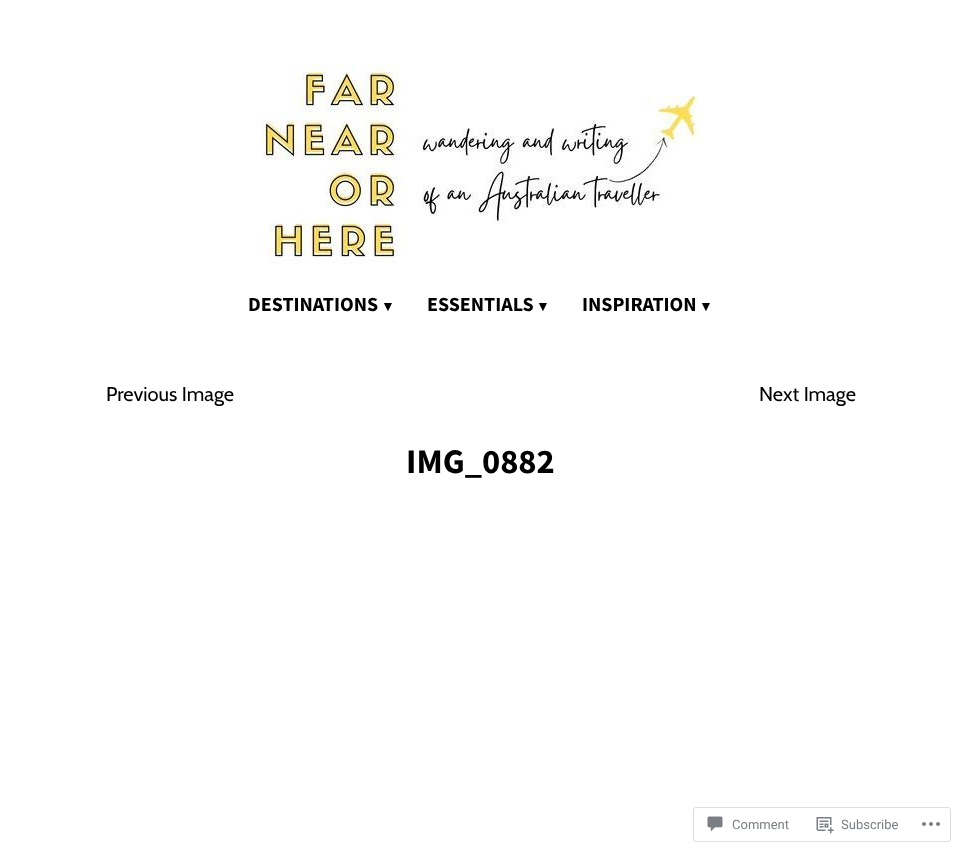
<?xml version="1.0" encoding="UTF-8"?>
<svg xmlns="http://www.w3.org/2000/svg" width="961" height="852">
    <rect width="100%" height="100%" fill="#FFFFFF"/>
    <image x="262" y="64" width="438" height="200" href="img_01.png"/>
    <text x="248" y="311" font-family="Source Sans Pro" font-size="20" font-weight="700" fill="#000000">DESTINATIONS</text>
    <text x="381" y="311" font-family="Liberation Sans" font-size="14" font-weight="700" fill="#000000">▼</text>
    <text x="427" y="311" font-family="Source Sans Pro" font-size="20" font-weight="700" fill="#000000">ESSENTIALS</text>
    <text x="536" y="311" font-family="Liberation Sans" font-size="14" font-weight="700" fill="#000000">▼</text>
    <text x="582" y="311" font-family="Source Sans Pro" font-size="20" font-weight="700" fill="#000000">INSPIRATION</text>
    <text x="699" y="311" font-family="Liberation Sans" font-size="14" font-weight="700" fill="#000000">▼</text>
    <text x="106" y="401" font-family="Cabin" font-size="20" fill="#000000">Previous Image</text>
    <text x="759" y="401" font-family="Cabin" font-size="20" fill="#000000">Next Image</text>
    <text x="406" y="473" font-family="Source Sans Pro" font-size="34.5" font-weight="700" fill="#000000">IMG_0882</text>
    <rect x="693.5" y="807.5" width="257" height="34" rx="2.5" fill="none" stroke="#DDDDDF"/>
    <image x="707" y="816" width="16" height="16" href="img_02.png"/>
    <text x="732" y="829" font-family="Roboto" font-size="13" fill="#7B7F85">Comment</text>
    <image x="816" y="817" width="18" height="17" href="img_03.png"/>
    <text x="841" y="829" font-family="Roboto" font-size="13" fill="#7B7F85">Subscribe</text>
    <image x="922" y="822" width="18" height="4" href="img_04.png"/>
</svg>
